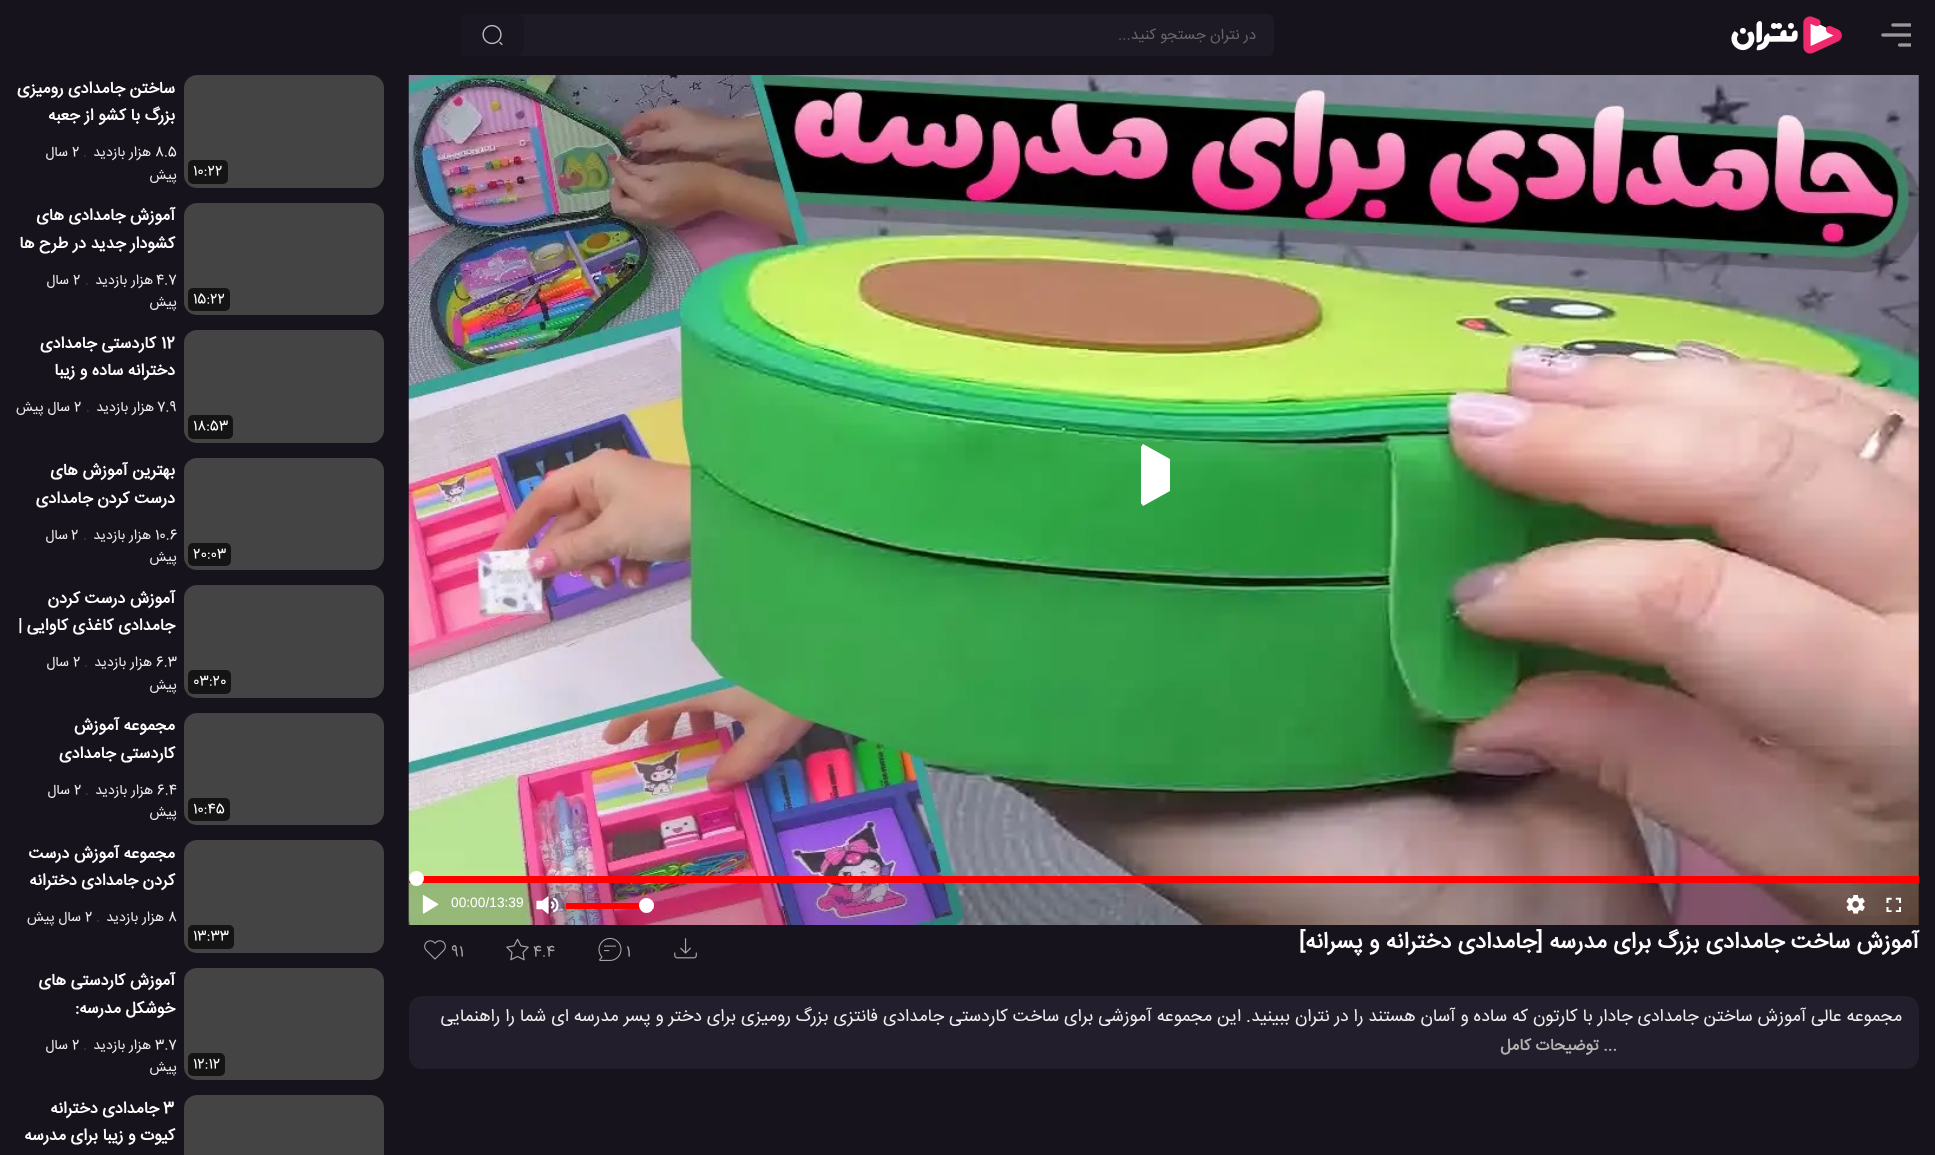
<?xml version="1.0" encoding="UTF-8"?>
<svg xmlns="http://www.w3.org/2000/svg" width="1935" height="1155">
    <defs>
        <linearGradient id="g1" gradientUnits="userSpaceOnUse" x1="409" y1="1049" x2="1919" y2="1049"><stop offset="0" stop-color="#231E2B"/><stop offset="0.78" stop-color="#231E2B"/><stop offset="0.9" stop-color="#231E2B" stop-opacity="0"/><stop offset="1" stop-color="#000000" stop-opacity="0"/></linearGradient>
    </defs>
    <rect width="100%" height="100%" fill="#16131C"/>
    <image x="1881" y="23" width="30" height="24" href="img_01.png"/>
    <image x="1731" y="16" width="111" height="38" href="img_02.png"/>
    <rect x="461" y="14" width="813" height="42" rx="6" fill="#1D1A26"/>
    <text x="1256" y="39" font-family="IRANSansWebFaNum" font-size="15" direction="rtl" fill="#666666">در نتران جستجو کنید...</text>
    <rect x="461" y="14" width="63" height="42" rx="8" fill="#191622"/>
    <image x="482" y="24" width="21" height="21" href="img_03.png"/>
    <text x="1919" y="948" font-family="IRANSansWebFaNum" font-size="22.5" font-weight="700" direction="rtl" fill="#FFFFFF">آموزش ساخت جامدادی بزرگ برای مدرسه [جامدادی دخترانه و پسرانه]</text>
    <image x="674" y="938" width="23" height="21" href="img_04.png"/>
    <text x="626" y="956" font-family="IRANSansWebFaNum" font-size="15" fill="#A4A4A4">1</text>
    <image x="598" y="937" width="24" height="24" href="img_05.png"/>
    <text x="533" y="956" font-family="IRANSansWebFaNum" font-size="15" fill="#A4A4A4">4.4</text>
    <image x="506" y="938" width="23" height="23" href="img_06.png"/>
    <text x="451" y="956" font-family="IRANSansWebFaNum" font-size="15" fill="#A4A4A4">91</text>
    <image x="424" y="940" width="22" height="20" href="img_07.png"/>
    <rect x="409" y="996" width="1510" height="73" rx="13" fill="#231E2B"/>
    <text x="1902" y="1021" font-family="IRANSansWebFaNum" font-size="17.5" direction="rtl" fill="#EEEEEE">مجموعه عالی آموزش ساختن جامدادی جادار با کارتون که ساده و آسان هستند را در نتران ببینید. این مجموعه آموزشی برای ساخت کاردستی جامدادی فانتزی بزرگ رومیزی برای دختر و پسر مدرسه ای شما را راهنمایی</text>
    <path d="M 409 1029 H 1919 V 1056 C 1919 1063 1913 1069 1906 1069 H 422 C 415 1069 409 1063 409 1056 Z" fill="url(#g1)"/>
    <text x="1617" y="1050" font-family="IRANSansWebFaNum" font-size="16.25" font-weight="700" direction="rtl" fill="#B2B2B2">... توضیحات کامل</text>
    <rect x="184" y="75" width="200" height="113" rx="13" fill="#444444"/>
    <text font-family="IRANSansWebFaNum" font-size="16.25" font-weight="700" direction="rtl" fill="#FFFFFF">
        <tspan x="175" y="93">ساختن جامدادی رومیزی</tspan>
        <tspan x="175" y="120">بزرگ با کشو از جعبه</tspan>
    </text>
    <text x="155" y="156" font-family="IRANSansWebFaNum" font-size="13.75" fill="#EEEEEE">8.5</text>
    <text x="151" y="156" font-family="IRANSansWebFaNum" font-size="13.75" direction="rtl" fill="#EEEEEE">هزار بازدید</text>
    <text x="83" y="156" font-family="IRANSansWebFaNum" font-size="13.75" fill="#484A57">.</text>
    <text x="72" y="156" font-family="IRANSansWebFaNum" font-size="13.75" fill="#EEEEEE">2</text>
    <text x="68" y="156" font-family="IRANSansWebFaNum" font-size="13.75" direction="rtl" fill="#EEEEEE">سال</text>
    <rect x="188" y="160" width="40" height="24" rx="5" fill="#141414"/>
    <text x="193" y="175" font-family="IRANSansWebFaNum" font-size="13.75" fill="#FFFFFF">10:22</text>
    <text x="177" y="179" font-family="IRANSansWebFaNum" font-size="13.75" direction="rtl" fill="#EEEEEE">پیش</text>
    <rect x="184" y="203" width="200" height="112" rx="13" fill="#444444"/>
    <text font-family="IRANSansWebFaNum" font-size="16.25" font-weight="700" direction="rtl" fill="#FFFFFF">
        <tspan x="175" y="220">آموزش جامدادی های</tspan>
        <tspan x="175" y="248">کشودار جدید در طرح ها</tspan>
    </text>
    <text x="156" y="284" font-family="IRANSansWebFaNum" font-size="13.75" fill="#EEEEEE">4.7</text>
    <text x="153" y="284" font-family="IRANSansWebFaNum" font-size="13.75" direction="rtl" fill="#EEEEEE">هزار بازدید</text>
    <text x="85" y="284" font-family="IRANSansWebFaNum" font-size="13.75" fill="#484A57">.</text>
    <text x="73" y="284" font-family="IRANSansWebFaNum" font-size="13.75" fill="#EEEEEE">2</text>
    <text x="69" y="284" font-family="IRANSansWebFaNum" font-size="13.75" direction="rtl" fill="#EEEEEE">سال</text>
    <rect x="188" y="288" width="42" height="23" rx="5" fill="#141414"/>
    <text x="193" y="303" font-family="IRANSansWebFaNum" font-size="13.75" fill="#FFFFFF">15:22</text>
    <text x="177" y="306" font-family="IRANSansWebFaNum" font-size="13.75" direction="rtl" fill="#EEEEEE">پیش</text>
    <rect x="184" y="330" width="200" height="113" rx="13" fill="#444444"/>
    <text x="161" y="348" font-family="IRANSansWebFaNum" font-size="16.25" font-weight="700" fill="#FFFFFF">12</text>
    <text x="156" y="348" font-family="IRANSansWebFaNum" font-size="16.25" font-weight="700" direction="rtl" fill="#FFFFFF">کاردستی جامدادی</text>
    <text x="175" y="375" font-family="IRANSansWebFaNum" font-size="16.25" font-weight="700" direction="rtl" fill="#FFFFFF">دخترانه ساده و زیبا</text>
    <text x="157" y="411" font-family="IRANSansWebFaNum" font-size="13.75" fill="#EEEEEE">7.9</text>
    <text x="154" y="411" font-family="IRANSansWebFaNum" font-size="13.75" direction="rtl" fill="#EEEEEE">هزار بازدید</text>
    <text x="86" y="411" font-family="IRANSansWebFaNum" font-size="13.75" fill="#484A57">.</text>
    <text x="74" y="411" font-family="IRANSansWebFaNum" font-size="13.75" fill="#EEEEEE">2</text>
    <text x="70" y="411" font-family="IRANSansWebFaNum" font-size="13.75" direction="rtl" fill="#EEEEEE">سال پیش</text>
    <rect x="188" y="415" width="45" height="24" rx="5" fill="#141414"/>
    <text x="193" y="430" font-family="IRANSansWebFaNum" font-size="13.75" fill="#FFFFFF">18:53</text>
    <rect x="184" y="458" width="200" height="112" rx="13" fill="#444444"/>
    <text font-family="IRANSansWebFaNum" font-size="16.25" font-weight="700" direction="rtl" fill="#FFFFFF">
        <tspan x="175" y="475">بهترین آموزش های</tspan>
        <tspan x="175" y="503">درست کردن جامدادی</tspan>
    </text>
    <text x="155" y="539" font-family="IRANSansWebFaNum" font-size="13.75" fill="#EEEEEE">10.6</text>
    <text x="151" y="539" font-family="IRANSansWebFaNum" font-size="13.75" direction="rtl" fill="#EEEEEE">هزار بازدید</text>
    <text x="83" y="539" font-family="IRANSansWebFaNum" font-size="13.75" fill="#484A57">.</text>
    <text x="71" y="539" font-family="IRANSansWebFaNum" font-size="13.75" fill="#EEEEEE">2</text>
    <text x="68" y="539" font-family="IRANSansWebFaNum" font-size="13.75" direction="rtl" fill="#EEEEEE">سال</text>
    <rect x="188" y="543" width="43" height="23" rx="5" fill="#141414"/>
    <text x="193" y="558" font-family="IRANSansWebFaNum" font-size="13.75" fill="#FFFFFF">20:03</text>
    <text x="177" y="561" font-family="IRANSansWebFaNum" font-size="13.75" direction="rtl" fill="#EEEEEE">پیش</text>
    <rect x="184" y="585" width="200" height="113" rx="13" fill="#444444"/>
    <text font-family="IRANSansWebFaNum" font-size="16.25" font-weight="700" direction="rtl" fill="#FFFFFF">
        <tspan x="175" y="603">آموزش درست کردن</tspan>
        <tspan x="175" y="630">جامدادی کاغذی کاوایی |</tspan>
    </text>
    <text x="156" y="666" font-family="IRANSansWebFaNum" font-size="13.75" fill="#EEEEEE">6.3</text>
    <text x="152" y="666" font-family="IRANSansWebFaNum" font-size="13.75" direction="rtl" fill="#EEEEEE">هزار بازدید</text>
    <text x="84" y="666" font-family="IRANSansWebFaNum" font-size="13.75" fill="#484A57">.</text>
    <text x="73" y="666" font-family="IRANSansWebFaNum" font-size="13.75" fill="#EEEEEE">2</text>
    <text x="69" y="666" font-family="IRANSansWebFaNum" font-size="13.75" direction="rtl" fill="#EEEEEE">سال</text>
    <rect x="188" y="670" width="43" height="24" rx="5" fill="#141414"/>
    <text x="193" y="685" font-family="IRANSansWebFaNum" font-size="13.75" fill="#FFFFFF">03:20</text>
    <text x="177" y="689" font-family="IRANSansWebFaNum" font-size="13.75" direction="rtl" fill="#EEEEEE">پیش</text>
    <rect x="184" y="713" width="200" height="112" rx="13" fill="#444444"/>
    <text font-family="IRANSansWebFaNum" font-size="16.25" font-weight="700" direction="rtl" fill="#FFFFFF">
        <tspan x="175" y="730">مجموعه آموزش</tspan>
        <tspan x="175" y="758">کاردستی جامدادی</tspan>
    </text>
    <text x="157" y="794" font-family="IRANSansWebFaNum" font-size="13.75" fill="#EEEEEE">6.4</text>
    <text x="153" y="794" font-family="IRANSansWebFaNum" font-size="13.75" direction="rtl" fill="#EEEEEE">هزار بازدید</text>
    <text x="85" y="794" font-family="IRANSansWebFaNum" font-size="13.75" fill="#484A57">.</text>
    <text x="74" y="794" font-family="IRANSansWebFaNum" font-size="13.75" fill="#EEEEEE">2</text>
    <text x="70" y="794" font-family="IRANSansWebFaNum" font-size="13.75" direction="rtl" fill="#EEEEEE">سال</text>
    <rect x="188" y="798" width="42" height="23" rx="5" fill="#141414"/>
    <text x="193" y="813" font-family="IRANSansWebFaNum" font-size="13.75" fill="#FFFFFF">10:45</text>
    <text x="177" y="816" font-family="IRANSansWebFaNum" font-size="13.75" direction="rtl" fill="#EEEEEE">پیش</text>
    <rect x="184" y="840" width="200" height="113" rx="13" fill="#444444"/>
    <text font-family="IRANSansWebFaNum" font-size="16.25" font-weight="700" direction="rtl" fill="#FFFFFF">
        <tspan x="175" y="858">مجموعه آموزش درست</tspan>
        <tspan x="175" y="885">کردن جامدادی دخترانه</tspan>
    </text>
    <text x="168" y="921" font-family="IRANSansWebFaNum" font-size="13.75" fill="#EEEEEE">8</text>
    <text x="164" y="921" font-family="IRANSansWebFaNum" font-size="13.75" direction="rtl" fill="#EEEEEE">هزار بازدید</text>
    <text x="96" y="921" font-family="IRANSansWebFaNum" font-size="13.75" fill="#484A57">.</text>
    <text x="85" y="921" font-family="IRANSansWebFaNum" font-size="13.75" fill="#EEEEEE">2</text>
    <text x="81" y="921" font-family="IRANSansWebFaNum" font-size="13.75" direction="rtl" fill="#EEEEEE">سال پیش</text>
    <rect x="188" y="925" width="46" height="24" rx="5" fill="#141414"/>
    <text x="193" y="940" font-family="IRANSansWebFaNum" font-size="13.75" fill="#FFFFFF">13:33</text>
    <rect x="184" y="968" width="200" height="112" rx="13" fill="#444444"/>
    <text font-family="IRANSansWebFaNum" font-size="16.25" font-weight="700" direction="rtl" fill="#FFFFFF">
        <tspan x="175" y="985">آموزش کاردستی های</tspan>
        <tspan x="175" y="1013">خوشکل مدرسه:</tspan>
    </text>
    <text x="155" y="1049" font-family="IRANSansWebFaNum" font-size="13.75" fill="#EEEEEE">3.7</text>
    <text x="151" y="1049" font-family="IRANSansWebFaNum" font-size="13.75" direction="rtl" fill="#EEEEEE">هزار بازدید</text>
    <text x="83" y="1049" font-family="IRANSansWebFaNum" font-size="13.75" fill="#484A57">.</text>
    <text x="72" y="1049" font-family="IRANSansWebFaNum" font-size="13.75" fill="#EEEEEE">2</text>
    <text x="68" y="1049" font-family="IRANSansWebFaNum" font-size="13.75" direction="rtl" fill="#EEEEEE">سال</text>
    <rect x="188" y="1053" width="37" height="23" rx="5" fill="#141414"/>
    <text x="193" y="1068" font-family="IRANSansWebFaNum" font-size="13.75" fill="#FFFFFF">12:12</text>
    <text x="177" y="1071" font-family="IRANSansWebFaNum" font-size="13.75" direction="rtl" fill="#EEEEEE">پیش</text>
    <rect x="184" y="1095" width="200" height="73" rx="13" fill="#444444"/>
    <text x="163" y="1113" font-family="IRANSansWebFaNum" font-size="16.25" font-weight="700" fill="#FFFFFF">3</text>
    <text x="159" y="1113" font-family="IRANSansWebFaNum" font-size="16.25" font-weight="700" direction="rtl" fill="#FFFFFF">جامدادی دخترانه</text>
    <text x="175" y="1140" font-family="IRANSansWebFaNum" font-size="16.25" font-weight="700" direction="rtl" fill="#FFFFFF">کیوت و زیبا برای مدرسه</text>
    <image x="408" y="75" width="1511" height="850" href="img_08.png"/>
    <path d="M 1141 447 L 1143 444 L 1170 459 V 491 L 1143 506 L 1141 503 Z" fill="#FFFFFF"/>
    <rect x="409" y="883" width="1510" height="42" fill="#000000" fill-opacity="0.2"/>
    <rect x="409" y="876" width="1510" height="7" fill="#FF0000"/>
    <circle cx="416.5" cy="878.5" r="7.5" fill="#FFFFFF"/>
    <image x="1886" y="897" width="16" height="15" href="img_09.png"/>
    <image x="1846" y="895" width="19" height="19" href="img_10.png"/>
    <rect x="653" y="903" width="1" height="6" fill="#FFFFFF" fill-opacity="0.35"/>
    <rect x="566" y="903" width="74" height="6" fill="#FF0000"/>
    <circle cx="646.5" cy="905.5" r="7.5" fill="#FFFFFF"/>
    <image x="536" y="896" width="23" height="18" href="img_11.png"/>
    <text x="451" y="907" font-family="Liberation Sans" font-size="13.75" fill="#FFFFFF">00:00/13:39</text>
    <image x="422" y="895" width="17" height="19" href="img_12.png"/>
</svg>
